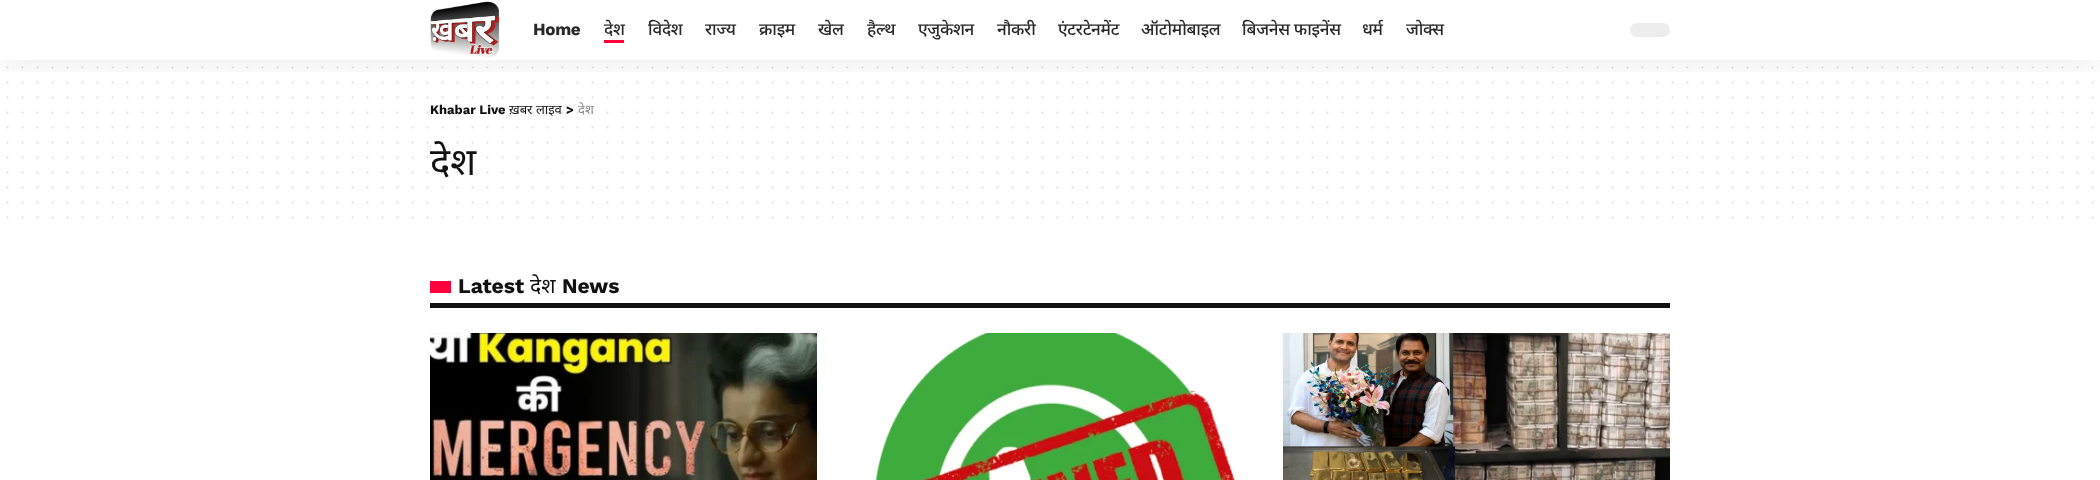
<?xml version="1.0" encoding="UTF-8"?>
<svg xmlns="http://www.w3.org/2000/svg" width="2100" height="480">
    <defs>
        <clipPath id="clip1"><rect x="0" y="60" width="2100" height="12"/></clipPath>
        <filter id="blur1" x="-50%" y="-200%" width="200%" height="500%"><feGaussianBlur stdDeviation="15"/></filter>
    </defs>
    <rect width="100%" height="100%" fill="#FFFFFF"/>
    <path d="M 7.5 67.5 H 2092.7" fill="none" stroke="#DBDBDB" stroke-width="2" stroke-linecap="round" stroke-dasharray="0 15"/>
    <path d="M 7.5 82.5 H 2092.7" fill="none" stroke="#DBDBDB" stroke-width="2" stroke-linecap="round" stroke-dasharray="0 15"/>
    <path d="M 7.5 97.5 H 2092.7" fill="none" stroke="#DBDBDB" stroke-width="2" stroke-linecap="round" stroke-dasharray="0 15"/>
    <g clip-path="url(#clip1)">
        <rect x="0" y="4" width="2100" height="60" fill="#000000" fill-opacity="0.07" filter="url(#blur1)"/>
    </g>
    <image x="430" y="1" width="70" height="57" href="img_01.png"/>
    <text x="533" y="35" font-family="Work Sans" font-size="17" font-weight="700" letter-spacing="-0.3" fill="#282828">Home</text>
    <text x="604" y="35" font-family="Noto Sans" font-size="17" font-weight="500" letter-spacing="-0.3" fill="#282828">देश</text>
    <rect x="604" y="40" width="20" height="3" fill="#FF003C"/>
    <text x="648" y="35" font-family="Noto Sans" font-size="17" font-weight="500" letter-spacing="-0.3" fill="#282828">विदेश</text>
    <text x="705" y="35" font-family="Noto Sans" font-size="17" font-weight="500" letter-spacing="-0.3" fill="#282828">राज्य</text>
    <text x="759" y="35" font-family="Noto Sans" font-size="17" font-weight="500" letter-spacing="-0.3" fill="#282828">क्राइम</text>
    <text x="818" y="35" font-family="Noto Sans" font-size="17" font-weight="500" letter-spacing="-0.3" fill="#282828">खेल</text>
    <text x="867" y="35" font-family="Noto Sans" font-size="17" font-weight="500" letter-spacing="-0.3" fill="#282828">हैल्थ</text>
    <text x="918" y="35" font-family="Noto Sans" font-size="17" font-weight="500" letter-spacing="-0.3" fill="#282828">एजुकेशन</text>
    <text x="997" y="35" font-family="Noto Sans" font-size="17" font-weight="500" letter-spacing="-0.3" fill="#282828">नौकरी</text>
    <text x="1058" y="35" font-family="Noto Sans" font-size="17" font-weight="500" letter-spacing="-0.3" fill="#282828">एंटरटेनमेंट</text>
    <text x="1141" y="35" font-family="Noto Sans" font-size="17" font-weight="500" letter-spacing="-0.3" fill="#282828">ऑटोमोबाइल</text>
    <text x="1242" y="35" font-family="Noto Sans" font-size="17" font-weight="500" letter-spacing="-0.3" fill="#282828">बिजनेस फाइनेंस</text>
    <text x="1362" y="35" font-family="Noto Sans" font-size="17" font-weight="500" letter-spacing="-0.3" fill="#282828">धर्म</text>
    <text x="1406" y="35" font-family="Noto Sans" font-size="17" font-weight="500" letter-spacing="-0.3" fill="#282828">जोक्स</text>
    <rect x="1630" y="23" width="40" height="14" rx="7" fill="#EDEDED"/>
    <path d="M 7.5 112.5 H 2092.7" fill="none" stroke="#DBDBDB" stroke-width="2" stroke-linecap="round" stroke-dasharray="0 15"/>
    <path d="M 7.5 127.5 H 2092.7" fill="none" stroke="#DBDBDB" stroke-width="2" stroke-linecap="round" stroke-dasharray="0 15"/>
    <path d="M 7.5 142.5 H 2092.7" fill="none" stroke="#DBDBDB" stroke-width="2" stroke-linecap="round" stroke-dasharray="0 15"/>
    <path d="M 7.5 157.5 H 2092.7" fill="none" stroke="#DBDBDB" stroke-width="2" stroke-linecap="round" stroke-dasharray="0 15"/>
    <path d="M 7.5 172.5 H 2092.7" fill="none" stroke="#DBDBDB" stroke-width="2" stroke-linecap="round" stroke-dasharray="0 15"/>
    <path d="M 7.5 187.5 H 2092.7" fill="none" stroke="#DBDBDB" stroke-width="2" stroke-linecap="round" stroke-dasharray="0 15"/>
    <path d="M 7.5 202.5 H 2092.7" fill="none" stroke="#DBDBDB" stroke-width="2" stroke-linecap="round" stroke-dasharray="0 15"/>
    <path d="M 7.5 217.5 H 2092.7" fill="none" stroke="#DBDBDB" stroke-width="2" stroke-linecap="round" stroke-dasharray="0 15"/>
    <text x="430" y="114" font-family="Work Sans" font-size="13" font-weight="700" fill="#111111">Khabar Live</text>
    <text x="509" y="114" font-family="Noto Sans" font-size="13" fill="#111111">ख़बर</text>
    <text x="536" y="114" font-family="Noto Sans" font-size="13" fill="#111111">लाइव</text>
    <text x="566" y="114" font-family="Work Sans" font-size="13" font-weight="700" fill="#111111">&gt;</text>
    <text x="578" y="114" font-family="Noto Sans" font-size="13" fill="#888888">देश</text>
    <text x="430" y="175" font-family="Noto Sans" font-size="38" fill="#111111">देश</text>
    <rect x="430" y="303" width="1240" height="5" fill="#111111"/>
    <rect x="430" y="281" width="21" height="12" fill="#FF003C"/>
    <text x="458" y="293" font-family="Work Sans" font-size="21" font-weight="700" fill="#111111">Latest</text>
    <text x="530" y="293" font-family="Noto Sans" font-size="21" fill="#111111">देश</text>
    <text x="562" y="293" font-family="Work Sans" font-size="21" font-weight="700" fill="#111111">News</text>
    <image x="430" y="333" width="387" height="147" href="img_02.png"/>
    <image x="875" y="333" width="360" height="147" href="img_03.png"/>
    <image x="1283" y="333" width="387" height="147" href="img_04.png"/>
</svg>
